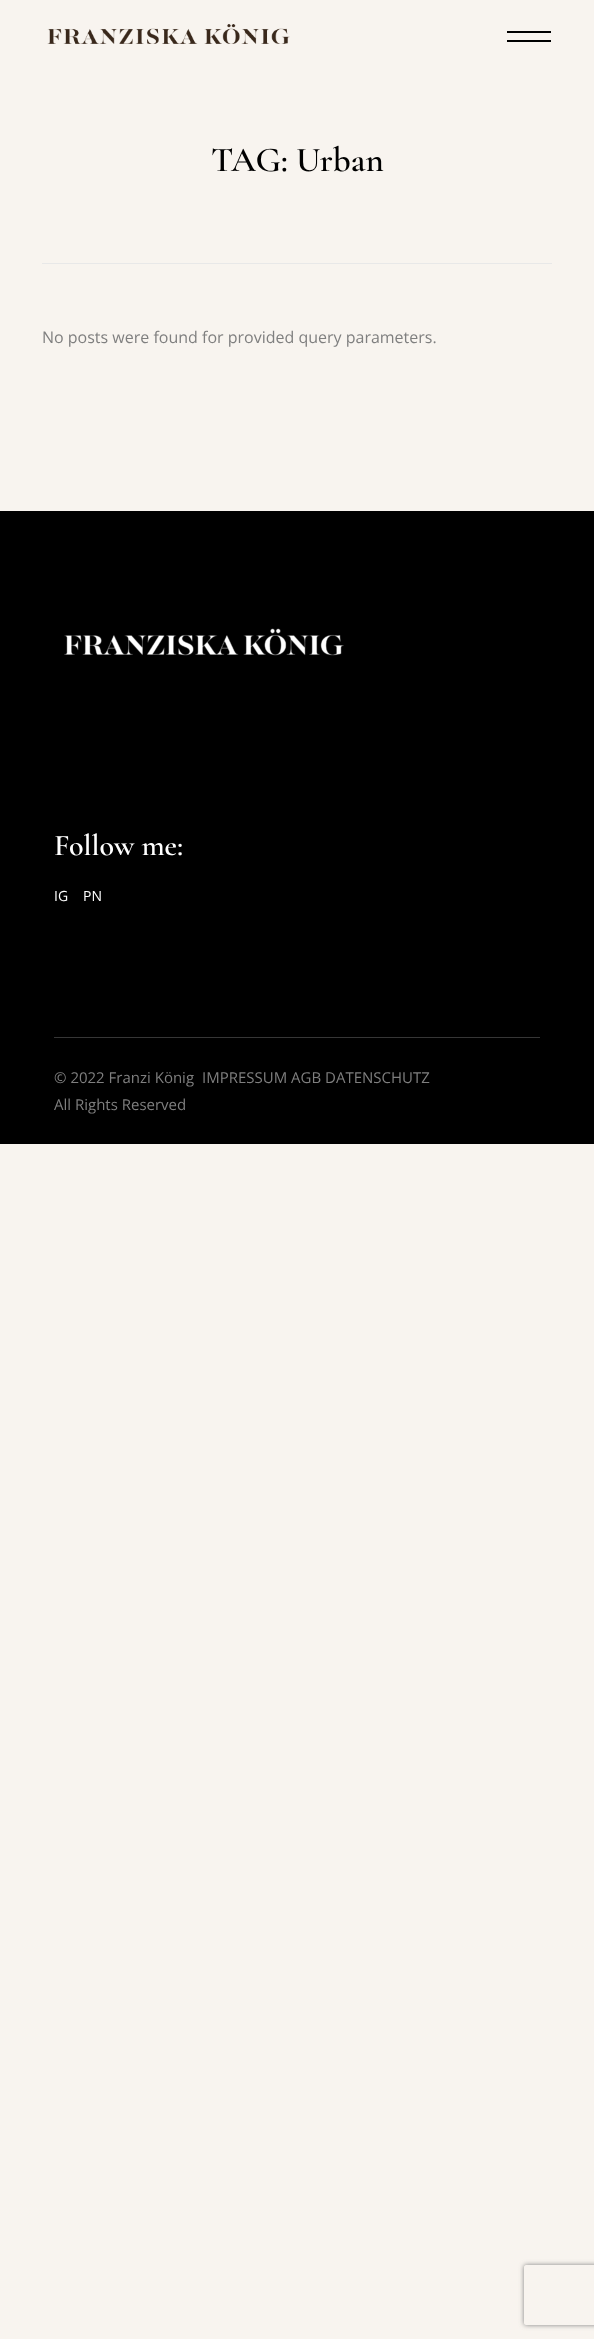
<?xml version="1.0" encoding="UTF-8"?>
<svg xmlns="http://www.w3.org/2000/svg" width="594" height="2339">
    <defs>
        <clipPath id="clip1"><path d="M 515 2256 H 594 V 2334 H 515 Z M 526 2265 H 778 C 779 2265 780 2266 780 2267 V 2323 C 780 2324 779 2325 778 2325 H 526 C 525 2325 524 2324 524 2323 V 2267 C 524 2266 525 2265 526 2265 Z" clip-rule="evenodd"/></clipPath>
        <filter id="blur1" x="-50%" y="-200%" width="200%" height="500%"><feGaussianBlur stdDeviation="2.5"/></filter>
    </defs>
    <rect width="100%" height="100%" fill="#F8F4EF"/>
    <image x="47" y="24" width="243" height="20" href="img_01.png"/>
    <rect x="507" y="31" width="44" height="2" fill="#000000"/>
    <rect x="507" y="40" width="44" height="2" fill="#000000"/>
    <text x="211" y="171" font-family="Cormorant Garamond" font-size="35" font-weight="600" fill="#000000">TAG: Urban</text>
    <rect x="42" y="263" width="510" height="1" fill="#E8E8E8"/>
    <text x="42" y="343" font-family="Open Sans" font-size="16" fill="#7F7F7F">No posts were found for provided query parameters.</text>
    <rect x="0" y="511" width="594" height="633" fill="#000000"/>
    <image x="64" y="628" width="280" height="28" href="img_02.png"/>
    <text x="54" y="855" font-family="Cormorant Garamond" font-size="30" font-weight="600" fill="#FFFFFF">Follow me:</text>
    <text x="54" y="901" font-family="Open Sans" font-size="14" fill="#FFFFFF">IG</text>
    <text x="83" y="901" font-family="Open Sans" font-size="14" fill="#FFFFFF">PN</text>
    <rect x="54" y="1037" width="486" height="1" fill="#363636"/>
    <text x="54" y="1083" font-family="Open Sans" font-size="15" fill="#7F7F7F">© 2022 Franzi König</text>
    <text x="202" y="1083" font-family="Open Sans" font-size="15" fill="#7F7F7F">IMPRESSUM AGB DATENSCHUTZ</text>
    <text x="54" y="1110" font-family="Open Sans" font-size="15" fill="#7F7F7F">All Rights Reserved</text>
    <g clip-path="url(#clip1)">
        <rect x="524" y="2265" width="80" height="60" rx="2" fill="#808080" filter="url(#blur1)"/>
    </g>
</svg>
